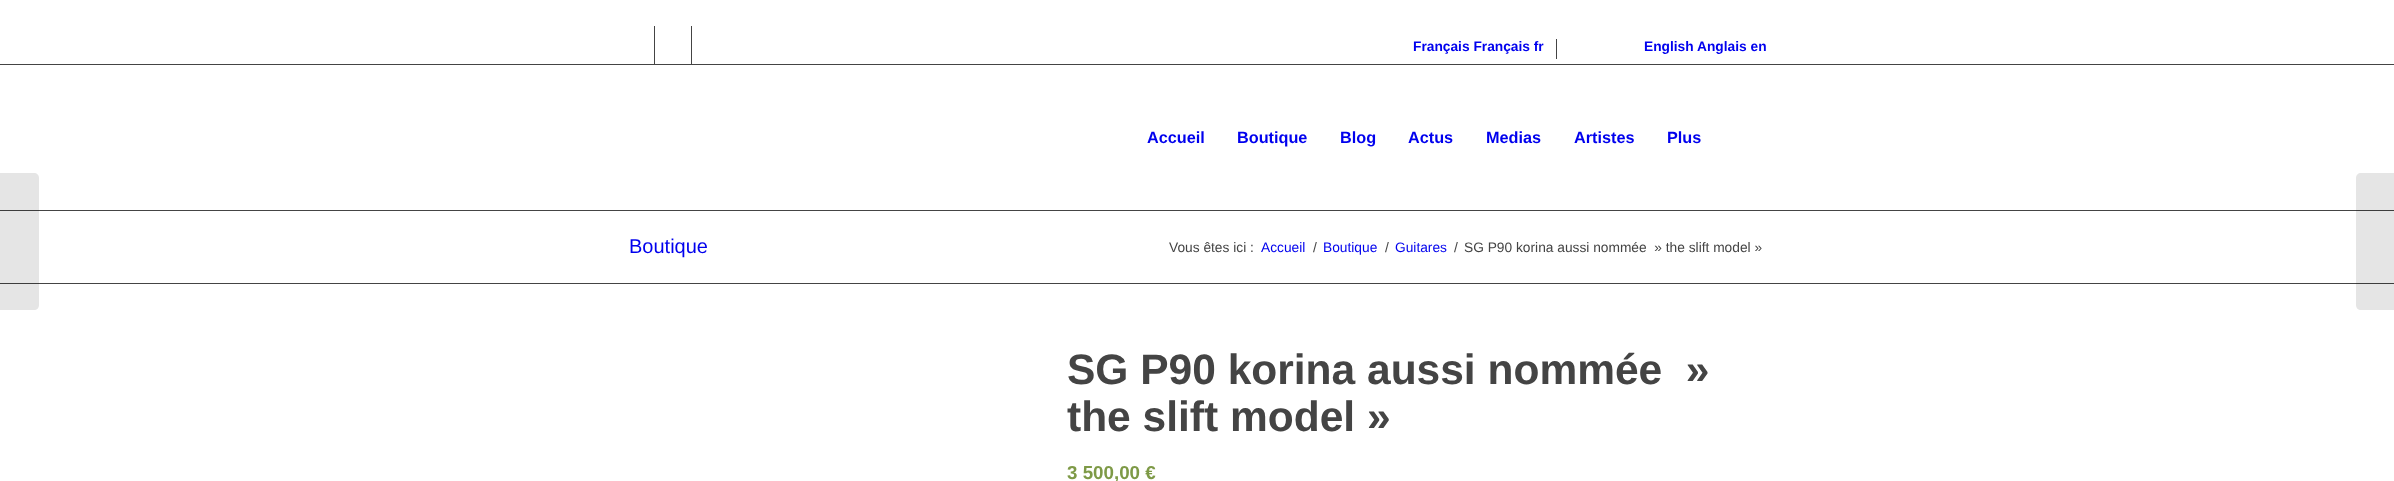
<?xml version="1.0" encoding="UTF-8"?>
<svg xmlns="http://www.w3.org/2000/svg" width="2394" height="481">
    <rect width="100%" height="100%" fill="#FFFFFF"/>
    <rect x="654" y="26" width="1" height="38" fill="#444444"/>
    <rect x="691" y="26" width="1" height="38" fill="#444444"/>
    <rect x="1556" y="39" width="1" height="20" fill="#444444"/>
    <text x="1413" y="51" font-family="Liberation Sans" font-size="13.75" font-weight="700" fill="#0000EE">Français Français fr</text>
    <text x="1644" y="51" font-family="Liberation Sans" font-size="13.75" font-weight="700" fill="#0000EE">English</text>
    <text x="1697" y="51" font-family="Liberation Sans" font-size="13.75" font-weight="700" fill="#0000EE">Anglais en</text>
    <rect x="0" y="64" width="2394" height="1" fill="#444444"/>
    <text x="1147" y="143" font-family="Liberation Sans" font-size="16.25" font-weight="700" fill="#0000EE">Accueil</text>
    <text x="1237" y="143" font-family="Liberation Sans" font-size="16.25" font-weight="700" fill="#0000EE">Boutique</text>
    <text x="1340" y="143" font-family="Liberation Sans" font-size="16.25" font-weight="700" fill="#0000EE">Blog</text>
    <text x="1408" y="143" font-family="Liberation Sans" font-size="16.25" font-weight="700" fill="#0000EE">Actus</text>
    <text x="1486" y="143" font-family="Liberation Sans" font-size="16.25" font-weight="700" fill="#0000EE">Medias</text>
    <text x="1574" y="143" font-family="Liberation Sans" font-size="16.25" font-weight="700" fill="#0000EE">Artistes</text>
    <text x="1667" y="143" font-family="Liberation Sans" font-size="16.25" font-weight="700" fill="#0000EE">Plus</text>
    <rect x="0" y="210" width="2394" height="1" fill="#444444"/>
    <rect x="0" y="283" width="2394" height="1" fill="#444444"/>
    <path d="M 0 173 H 34 C 37 173 39 175 39 178 V 305 C 39 308 37 310 34 310 H 0 Z" fill="#000000" fill-opacity="0.1"/>
    <text x="629" y="253" font-family="Liberation Sans" font-size="20" fill="#0000EE">Boutique</text>
    <text x="1169" y="252" font-family="Liberation Sans" font-size="13.75" fill="#444444">Vous êtes ici :</text>
    <text x="1261" y="252" font-family="Liberation Sans" font-size="13.75" fill="#0000EE">Accueil</text>
    <text x="1313" y="252" font-family="Liberation Sans" font-size="13.75" fill="#444444">/</text>
    <text x="1323" y="252" font-family="Liberation Sans" font-size="13.75" fill="#0000EE">Boutique</text>
    <text x="1385" y="252" font-family="Liberation Sans" font-size="13.75" fill="#444444">/</text>
    <text x="1395" y="252" font-family="Liberation Sans" font-size="13.75" fill="#0000EE">Guitares</text>
    <text x="1454" y="252" font-family="Liberation Sans" font-size="13.75" fill="#444444">/</text>
    <text x="1464" y="252" font-family="Liberation Sans" font-size="13.75" fill="#444444" xml:space="preserve">SG P90 korina aussi nommée  » the slift model »</text>
    <text font-family="Liberation Sans" font-size="42.5" font-weight="700" fill="#444444" xml:space="preserve"><tspan x="1067" y="384">SG P90 korina aussi nommée  »</tspan><tspan x="1067" y="431">the slift model »</tspan></text>
    <text x="1067" y="479" font-family="Liberation Sans" font-size="18.75" font-weight="700" fill="#7E9A47">3 500,00 €</text>
    <path d="M 2361 173 H 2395 V 310 H 2361 C 2358 310 2356 308 2356 305 V 178 C 2356 175 2358 173 2361 173 Z" fill="#000000" fill-opacity="0.1"/>
</svg>
